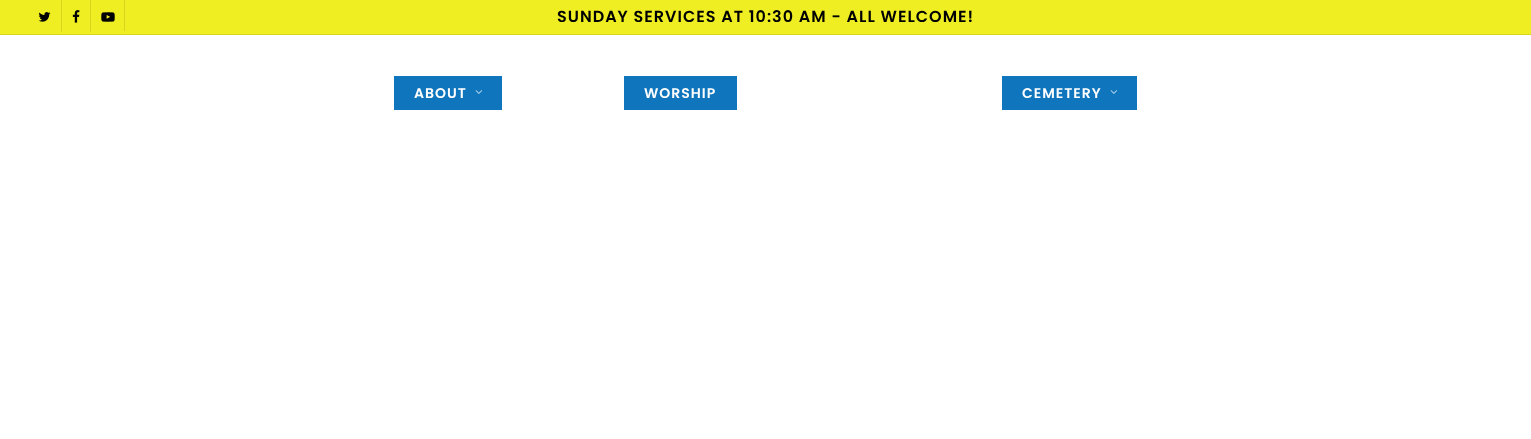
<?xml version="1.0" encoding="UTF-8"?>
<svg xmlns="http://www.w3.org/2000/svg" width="1531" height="439">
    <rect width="100%" height="100%" fill="#FFFFFF"/>
    <rect x="0" y="0" width="1531" height="34" fill="#EEEE22"/>
    <rect x="0" y="34" width="1531" height="1" fill="#D6D61F"/>
    <image x="38" y="12" width="13" height="10" href="img_01.png"/>
    <rect x="61" y="0" width="1" height="32" fill="#D6D61F"/>
    <image x="72" y="10" width="8" height="13" href="img_02.png"/>
    <rect x="124" y="0" width="1" height="31" fill="#D6D61F"/>
    <rect x="90" y="0" width="1" height="32" fill="#D6D61F"/>
    <image x="101" y="12" width="14" height="10" href="img_03.png"/>
    <text x="557" y="22" font-family="Poppins" font-size="16" font-weight="600" letter-spacing="1" fill="#000000">SUNDAY SERVICES AT 10:30 AM - ALL WELCOME!</text>
    <rect x="394" y="76" width="108" height="34" fill="#0F75BC"/>
    <text x="414" y="98" font-family="Poppins" font-size="14" font-weight="600" letter-spacing="1" fill="#FFFFFF">ABOUT</text>
    <image x="475" y="90" width="7" height="4" href="img_04.png"/>
    <rect x="624" y="76" width="113" height="34" fill="#0F75BC"/>
    <text x="644" y="98" font-family="Poppins" font-size="14" font-weight="600" letter-spacing="1" fill="#FFFFFF">WORSHIP</text>
    <rect x="1002" y="76" width="135" height="34" fill="#0F75BC"/>
    <text x="1022" y="98" font-family="Poppins" font-size="14" font-weight="600" letter-spacing="1" fill="#FFFFFF">CEMETERY</text>
    <image x="1110" y="90" width="7" height="4" href="img_04.png"/>
</svg>
